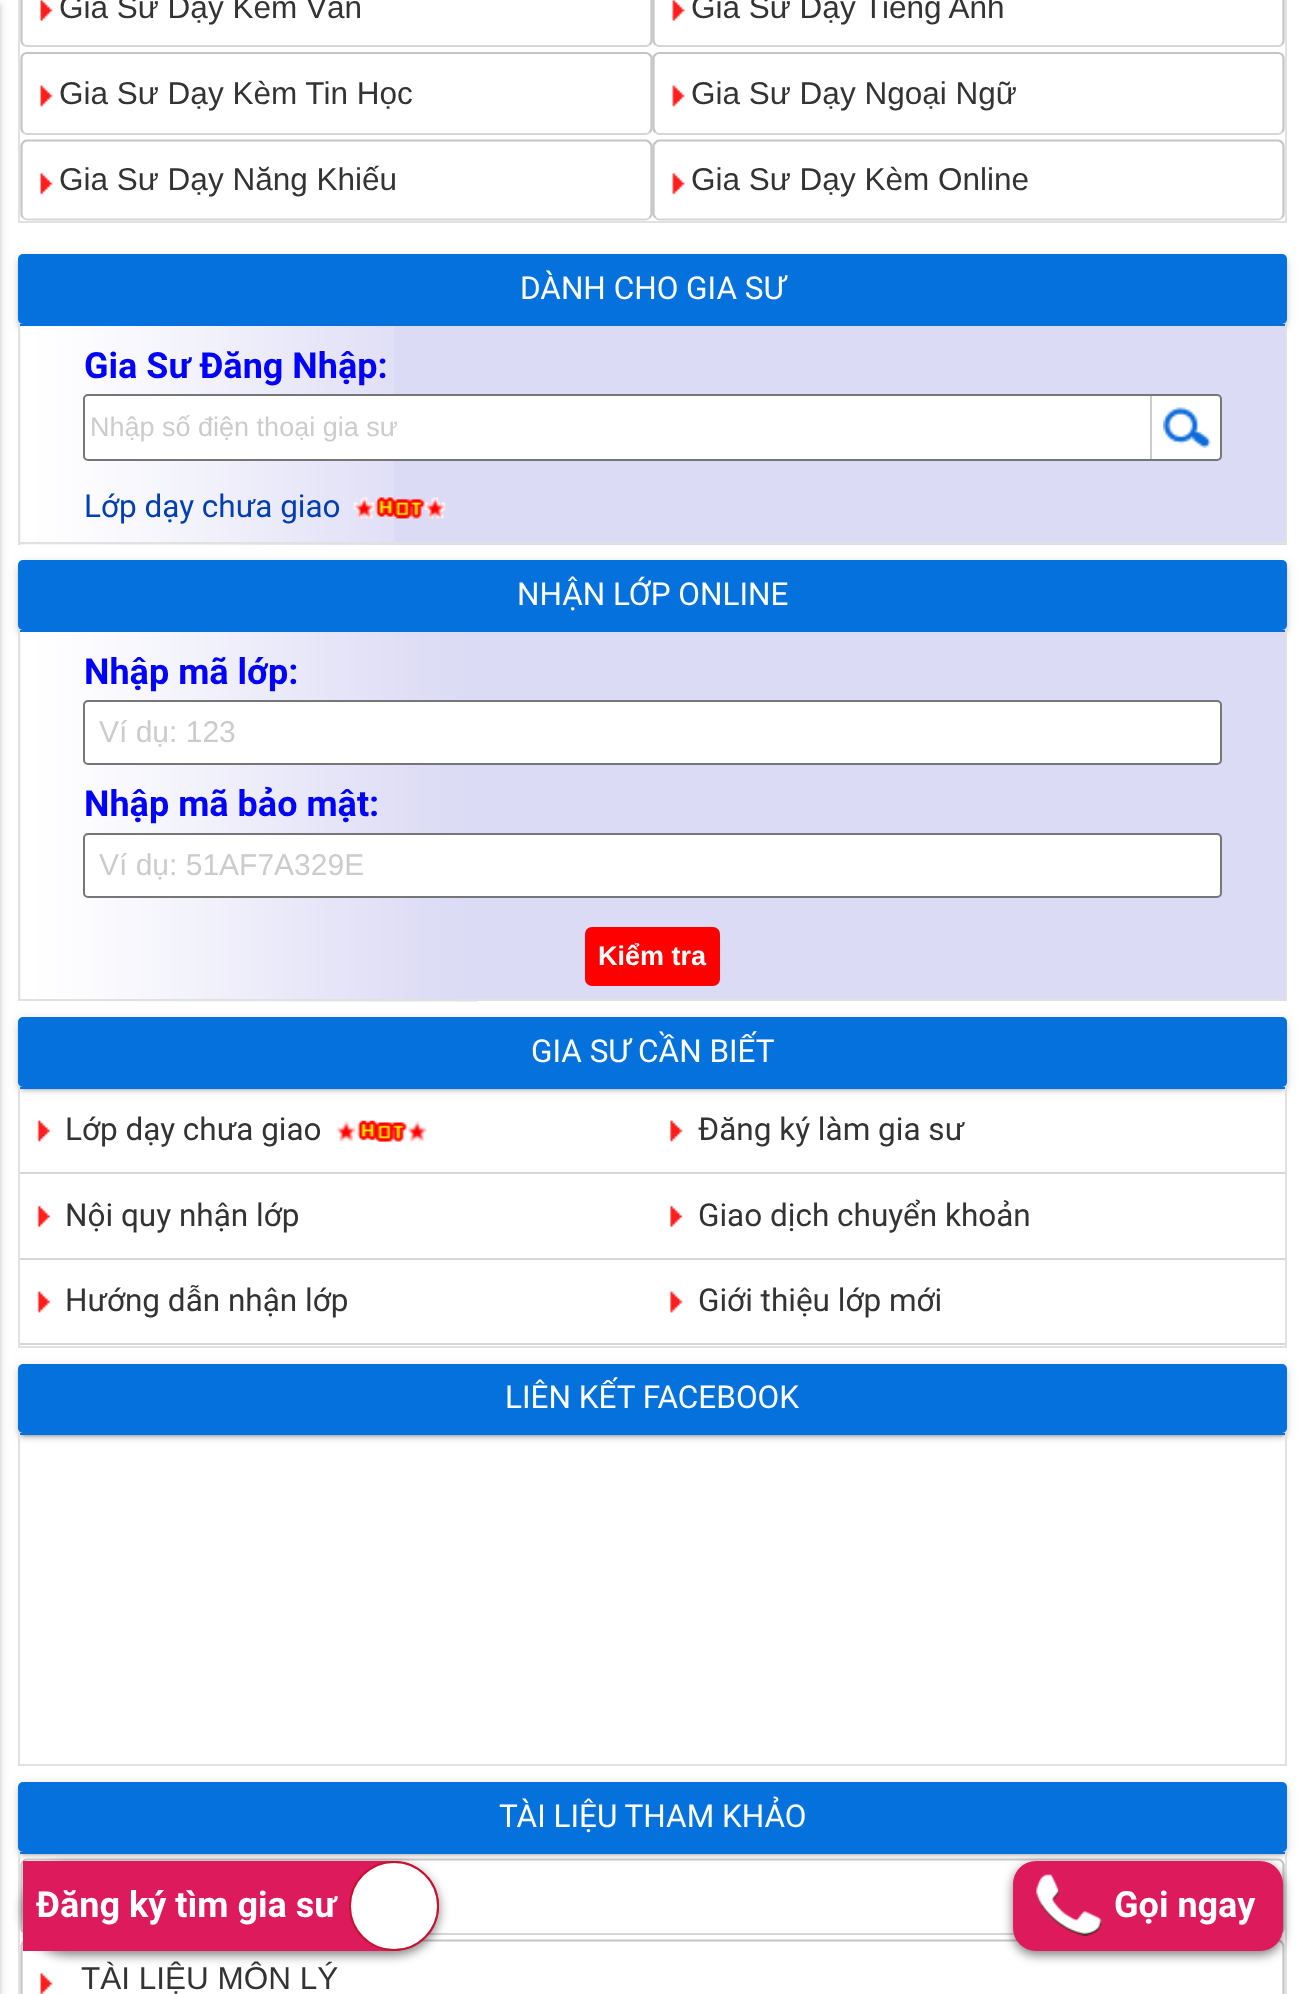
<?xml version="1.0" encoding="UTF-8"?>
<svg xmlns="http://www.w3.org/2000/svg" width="1304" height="1994">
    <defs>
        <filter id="blur1" x="-50%" y="-200%" width="200%" height="500%"><feGaussianBlur stdDeviation="5.5"/></filter>
        <filter id="blur2" x="-50%" y="-200%" width="200%" height="500%"><feGaussianBlur stdDeviation="2"/></filter>
        <filter id="blur3" x="-50%" y="-200%" width="200%" height="500%"><feGaussianBlur stdDeviation="1"/></filter>
    </defs>
    <rect width="100%" height="100%" fill="#FFFFFF"/>
    <rect x="-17" y="2" width="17" height="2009" fill="#000000" fill-opacity="0.12" filter="url(#blur1)"/>
    <rect x="-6" y="5" width="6" height="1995" fill="#000000" fill-opacity="0.14" filter="url(#blur2)"/>
    <rect x="1285" y="0" width="2" height="223" fill="#E1E1E1"/>
    <rect x="18" y="221" width="1269" height="2" fill="#E1E1E1"/>
    <rect x="18" y="0" width="2" height="223" fill="#E1E1E1"/>
    <image x="40" y="0" width="13" height="22" href="img_01.png"/>
    <path d="M 649.5 44.5 C 648.5 45.5 647 46 646 46 H 27 C 25.5 46 24 45.5 23 44.5" fill="none" stroke="#D6D6D6" stroke-width="2.2"/>
    <path d="M 23 44.5 C 22 43.5 21.5 42 21.5 40.5 V -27 C 21.5 -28.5 22 -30 23 -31 C 24 -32 25.5 -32.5 27 -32.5 H 646 C 647 -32.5 648.5 -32 649.5 -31 C 651 -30 651.5 -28.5 651.5 -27 V 40.5 C 651.5 42 651 43.5 649.5 44.5" fill="none" stroke="#C5C5C5" stroke-width="2.2"/>
    <text x="59" y="18" font-family="Liberation Sans" font-size="31.5" fill="#333333">Gia Sư Dạy Kèm Văn</text>
    <image x="672" y="0" width="13" height="22" href="img_02.png"/>
    <path d="M 1282 44.5 C 1281 45.5 1279.5 46 1278 46 H 659 C 658 46 656.5 45.5 655.5 44.5" fill="none" stroke="#D6D6D6" stroke-width="2.2"/>
    <path d="M 655.5 44.5 C 654 43.5 653.5 42 653.5 40.5 V -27 C 653.5 -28.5 654 -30 655.5 -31 C 656.5 -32 658 -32.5 659 -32.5 H 1278 C 1279.5 -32.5 1281 -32 1282 -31 C 1283 -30 1283.5 -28.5 1283.5 -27 V 40.5 C 1283.5 42 1283 43.5 1282 44.5" fill="none" stroke="#C5C5C5" stroke-width="2.2"/>
    <text x="691" y="18" font-family="Liberation Sans" font-size="31.5" fill="#333333">Gia Sư Dạy Tiếng Anh</text>
    <image x="40" y="85" width="13" height="22" href="img_03.png"/>
    <path d="M 649.5 132 C 648.5 133.5 647 134 646 134 H 27 C 25.5 134 24 133.5 23 132" fill="none" stroke="#D6D6D6" stroke-width="2.2"/>
    <path d="M 23 132 C 22 131 21.5 129.5 21.5 128 V 58.5 C 21.5 57 22 55.5 23 54.5 C 24 53.5 25.5 53 27 53 H 646 C 647 53 648.5 53.5 649.5 54.5 C 651 55.5 651.5 57 651.5 58.5 V 128 C 651.5 129.5 651 131 649.5 132" fill="none" stroke="#C5C5C5" stroke-width="2.2"/>
    <text x="59" y="104" font-family="Liberation Sans" font-size="31.5" fill="#333333">Gia Sư Dạy Kèm Tin Học</text>
    <image x="672" y="85" width="13" height="22" href="img_04.png"/>
    <path d="M 1282 132 C 1281 133.5 1279.5 134 1278 134 H 659 C 658 134 656.5 133.5 655.5 132" fill="none" stroke="#D6D6D6" stroke-width="2.2"/>
    <path d="M 655.5 132 C 654 131 653.5 129.5 653.5 128 V 58.5 C 653.5 57 654 55.5 655.5 54.5 C 656.5 53.5 658 53 659 53 H 1278 C 1279.5 53 1281 53.5 1282 54.5 C 1283 55.5 1283.5 57 1283.5 58.5 V 128 C 1283.5 129.5 1283 131 1282 132" fill="none" stroke="#C5C5C5" stroke-width="2.2"/>
    <text x="691" y="104" font-family="Liberation Sans" font-size="31.5" fill="#333333">Gia Sư Dạy Ngoại Ngữ</text>
    <image x="40" y="173" width="13" height="22" href="img_05.png"/>
    <path d="M 649.5 217.5 C 648.5 219 647 219.5 646 219.5 H 27 C 25.5 219.5 24 219 23 217.5" fill="none" stroke="#D6D6D6" stroke-width="2.2"/>
    <path d="M 23 217.5 C 22 216.5 21.5 215 21.5 214 V 146 C 21.5 145 22 143.5 23 142.5 C 24 141 25.5 140.5 27 140.5 H 646 C 647 140.5 648.5 141 649.5 142.5 C 651 143.5 651.5 145 651.5 146 V 214 C 651.5 215 651 216.5 649.5 217.5" fill="none" stroke="#C5C5C5" stroke-width="2.2"/>
    <text x="59" y="190" font-family="Liberation Sans" font-size="31.5" fill="#333333">Gia Sư Dạy Năng Khiếu</text>
    <image x="672" y="173" width="13" height="22" href="img_06.png"/>
    <path d="M 1282 217.5 C 1281 219 1279.5 219.5 1278 219.5 H 659 C 658 219.5 656.5 219 655.5 217.5" fill="none" stroke="#D6D6D6" stroke-width="2.2"/>
    <path d="M 655.5 217.5 C 654 216.5 653.5 215 653.5 214 V 146 C 653.5 145 654 143.5 655.5 142.5 C 656.5 141 658 140.5 659 140.5 H 1278 C 1279.5 140.5 1281 141 1282 142.5 C 1283 143.5 1283.5 145 1283.5 146 V 214 C 1283.5 215 1283 216.5 1282 217.5" fill="none" stroke="#C5C5C5" stroke-width="2.2"/>
    <text x="691" y="190" font-family="Liberation Sans" font-size="31.5" fill="#333333">Gia Sư Dạy Kèm Online</text>
    <rect x="18" y="257" width="1269" height="69" rx="5" fill="#000000" fill-opacity="0.12" filter="url(#blur1)"/>
    <rect x="18" y="259" width="1269" height="70" rx="5" fill="#000000" fill-opacity="0.14" filter="url(#blur2)"/>
    <rect x="18" y="254" width="1269" height="70" rx="5" fill="#0471DC"/>
    <text x="520" y="299" font-family="Roboto" font-size="31.5" fill="#FFFFFF">DÀNH CHO GIA SƯ</text>
    <rect x="20" y="326" width="1265" height="219" fill="#DCDBF5"/>
    <image x="20" y="326" width="374" height="219" href="img_07.png"/>
    <rect x="18" y="324" width="1269" height="2" fill="#0471DC"/>
    <rect x="1285" y="324" width="2" height="221" fill="#E1E1E1"/>
    <rect x="18" y="542" width="1269" height="2" fill="#E1E1E1"/>
    <rect x="18" y="324" width="2" height="221" fill="#E1E1E1"/>
    <text x="84" y="378" font-family="Roboto" font-size="36" font-weight="700" fill="#0000FF">Gia Sư Đăng Nhập:</text>
    <rect x="84" y="395" width="1137" height="65" rx="4" fill="#FFFFFF" stroke="#767676" stroke-width="2"/>
    <text x="90" y="436" font-family="Liberation Sans" font-size="27" fill="#CCCCCC">Nhập số điện thoại gia sư</text>
    <image x="1163" y="407" width="48" height="41" href="img_08.png"/>
    <rect x="1150" y="396" width="2" height="63" fill="#CCCCCC"/>
    <text x="84" y="517" font-family="Roboto" font-size="31.5" fill="#003FB3">Lớp dạy chưa giao</text>
    <image x="353" y="497" width="93" height="22" href="img_09.png"/>
    <rect x="18" y="563" width="1269" height="69" rx="5" fill="#000000" fill-opacity="0.12" filter="url(#blur1)"/>
    <rect x="18" y="565" width="1269" height="70" rx="5" fill="#000000" fill-opacity="0.14" filter="url(#blur2)"/>
    <rect x="18" y="560" width="1269" height="70" rx="5" fill="#0471DC"/>
    <text x="517" y="605" font-family="Roboto" font-size="31.5" fill="#FFFFFF">NHẬN LỚP ONLINE</text>
    <rect x="20" y="632" width="1265" height="367" fill="#DCDBF5"/>
    <image x="20" y="632" width="457" height="370" href="img_10.png"/>
    <rect x="18" y="630" width="1269" height="2" fill="#0471DC"/>
    <rect x="1285" y="630" width="2" height="371" fill="#E1E1E1"/>
    <rect x="18" y="999" width="1269" height="2" fill="#E1E1E1"/>
    <rect x="18" y="630" width="2" height="371" fill="#E1E1E1"/>
    <text x="84" y="684" font-family="Roboto" font-size="36" font-weight="700" fill="#0000FF">Nhập mã lớp:</text>
    <rect x="84" y="701" width="1137" height="63" rx="4" fill="#FFFFFF" stroke="#767676" stroke-width="2"/>
    <text x="99" y="742" font-family="Liberation Sans" font-size="30" fill="#CCCCCC">Ví dụ: 123</text>
    <text x="84" y="816" font-family="Roboto" font-size="36" font-weight="700" fill="#0000FF">Nhập mã bảo mật:</text>
    <rect x="84" y="834" width="1137" height="63" rx="4" fill="#FFFFFF" stroke="#767676" stroke-width="2"/>
    <text x="99" y="875" font-family="Liberation Sans" font-size="30" fill="#CCCCCC">Ví dụ: 51AF7A329E</text>
    <rect x="586" y="928" width="133" height="57" rx="6" fill="#FF0000" stroke="#FF0000" stroke-width="2"/>
    <text x="598" y="965" font-family="Liberation Sans" font-size="27" font-weight="700" fill="#FFFFFF">Kiểm tra</text>
    <rect x="23" y="1028" width="1260" height="61" fill="#000000" fill-opacity="0.2" filter="url(#blur3)"/>
    <rect x="18" y="1019" width="1269" height="70" rx="5" fill="#000000" fill-opacity="0.12" filter="url(#blur1)"/>
    <rect x="18" y="1022" width="1269" height="69" rx="5" fill="#000000" fill-opacity="0.14" filter="url(#blur2)"/>
    <rect x="18" y="1017" width="1269" height="70" rx="5" fill="#0471DC"/>
    <text x="531" y="1062" font-family="Roboto" font-size="31.5" fill="#FFFFFF">GIA SƯ CẦN BIẾT</text>
    <rect x="18" y="1087" width="1269" height="2" fill="#0471DC"/>
    <rect x="1285" y="1087" width="2" height="261" fill="#E1E1E1"/>
    <rect x="18" y="1346" width="1269" height="2" fill="#E1E1E1"/>
    <rect x="18" y="1087" width="2" height="261" fill="#E1E1E1"/>
    <image x="37" y="1120" width="14" height="22" href="img_11.png"/>
    <rect x="20" y="1172" width="1265" height="2" fill="#D6D6D6"/>
    <text x="65" y="1140" font-family="Roboto" font-size="31.5" fill="#333333">Lớp dạy chưa giao</text>
    <image x="335" y="1120" width="93" height="22" href="img_12.png"/>
    <image x="670" y="1120" width="13" height="22" href="img_13.png"/>
    <text x="698" y="1140" font-family="Roboto" font-size="31.5" fill="#333333">Đăng ký làm gia sư</text>
    <image x="37" y="1205" width="14" height="23" href="img_14.png"/>
    <rect x="20" y="1258" width="1265" height="2" fill="#D6D6D6"/>
    <text x="65" y="1226" font-family="Roboto" font-size="31.5" fill="#333333">Nội quy nhận lớp</text>
    <image x="670" y="1205" width="13" height="23" href="img_15.png"/>
    <text x="698" y="1226" font-family="Roboto" font-size="31.5" fill="#333333">Giao dịch chuyển khoản</text>
    <image x="37" y="1291" width="14" height="22" href="img_11.png"/>
    <rect x="20" y="1343" width="1265" height="2" fill="#D6D6D6"/>
    <text x="65" y="1311" font-family="Roboto" font-size="31.5" fill="#333333">Hướng dẫn nhận lớp</text>
    <image x="670" y="1291" width="13" height="22" href="img_13.png"/>
    <text x="698" y="1311" font-family="Roboto" font-size="31.5" fill="#333333">Giới thiệu lớp mới</text>
    <rect x="23" y="1375" width="1260" height="61" fill="#000000" fill-opacity="0.2" filter="url(#blur3)"/>
    <rect x="18" y="1366" width="1269" height="70" rx="5" fill="#000000" fill-opacity="0.12" filter="url(#blur1)"/>
    <rect x="18" y="1368" width="1269" height="70" rx="5" fill="#000000" fill-opacity="0.14" filter="url(#blur2)"/>
    <rect x="18" y="1364" width="1269" height="69" rx="5" fill="#0471DC"/>
    <text x="505" y="1408" font-family="Roboto" font-size="31.5" fill="#FFFFFF">LIÊN KẾT FACEBOOK</text>
    <rect x="18" y="1433" width="1269" height="2" fill="#0471DC"/>
    <rect x="1285" y="1433" width="2" height="333" fill="#E1E1E1"/>
    <rect x="18" y="1764" width="1269" height="2" fill="#E1E1E1"/>
    <rect x="18" y="1433" width="2" height="333" fill="#E1E1E1"/>
    <rect x="23" y="1793" width="1260" height="61" fill="#000000" fill-opacity="0.2" filter="url(#blur3)"/>
    <rect x="18" y="1784" width="1269" height="70" rx="5" fill="#000000" fill-opacity="0.12" filter="url(#blur1)"/>
    <rect x="18" y="1787" width="1269" height="69" rx="5" fill="#000000" fill-opacity="0.14" filter="url(#blur2)"/>
    <rect x="18" y="1782" width="1269" height="70" rx="5" fill="#0471DC"/>
    <text x="499" y="1827" font-family="Roboto" font-size="31.5" fill="#FFFFFF">TÀI LIỆU THAM KHẢO</text>
    <rect x="18" y="1852" width="1269" height="2" fill="#0471DC"/>
    <rect x="1285" y="1852" width="2" height="142" fill="#E1E1E1"/>
    <rect x="18" y="1852" width="2" height="142" fill="#E1E1E1"/>
    <path d="M 1282 1932 C 1281 1933.5 1279.5 1934 1278 1934 H 27 C 25.5 1934 24 1933.5 23 1932" fill="none" stroke="#D6D6D6" stroke-width="2.2"/>
    <path d="M 23 1932 C 22 1931 21.5 1929.5 21.5 1928 V 1865 C 21.5 1864 22 1862.5 23 1861.5 C 24 1860 25.5 1859.5 27 1859.5 H 1278 C 1279.5 1859.5 1281 1860 1282 1861.5 C 1283 1862.5 1283.5 1864 1283.5 1865 V 1928 C 1283.5 1929.5 1283 1931 1282 1932" fill="none" stroke="#C5C5C5" stroke-width="2.2"/>
    <image x="40" y="1973" width="13" height="21" href="img_16.png"/>
    <path d="M 23 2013 C 22 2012 21.5 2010.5 21.5 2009 V 1946 C 21.5 1945 22 1943.5 23 1942.5 C 24 1941 25.5 1940.5 27 1940.5 H 1278 C 1279.5 1940.5 1281 1941 1282 1942.5 C 1283 1943.5 1283.5 1945 1283.5 1946 V 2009 C 1283.5 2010.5 1283 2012 1282 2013" fill="none" stroke="#C5C5C5" stroke-width="2.2"/>
    <text x="81" y="1989" font-family="Liberation Sans" font-size="31.5" fill="#333333">TÀI LIỆU MÔN LÝ</text>
    <rect x="23" y="1865" width="416" height="90" rx="45" fill="#000000" fill-opacity="0.5" filter="url(#blur1)"/>
    <path d="M 23 1861 H 394 C 419 1861 439 1881 439 1906 C 439 1931 419 1951 394 1951 H 23 Z" fill="#DD1A5B"/>
    <text x="36" y="1917" font-family="Roboto" font-size="36" font-weight="700" fill="#FFFFFF">Đăng ký tìm gia sư</text>
    <circle cx="394" cy="1906" r="44" fill="#FFFFFF" stroke="#C51230" stroke-width="2"/>
    <rect x="1013" y="1865" width="270" height="90" rx="23" fill="#000000" fill-opacity="0.5" filter="url(#blur1)"/>
    <rect x="1013" y="1861" width="270" height="90" rx="23" fill="#DD1A5B"/>
    <image x="1036" y="1874" width="66" height="62" href="img_17.png"/>
    <text x="1114" y="1917" font-family="Roboto" font-size="36" font-weight="700" fill="#FFFFFF">Gọi ngay</text>
</svg>
